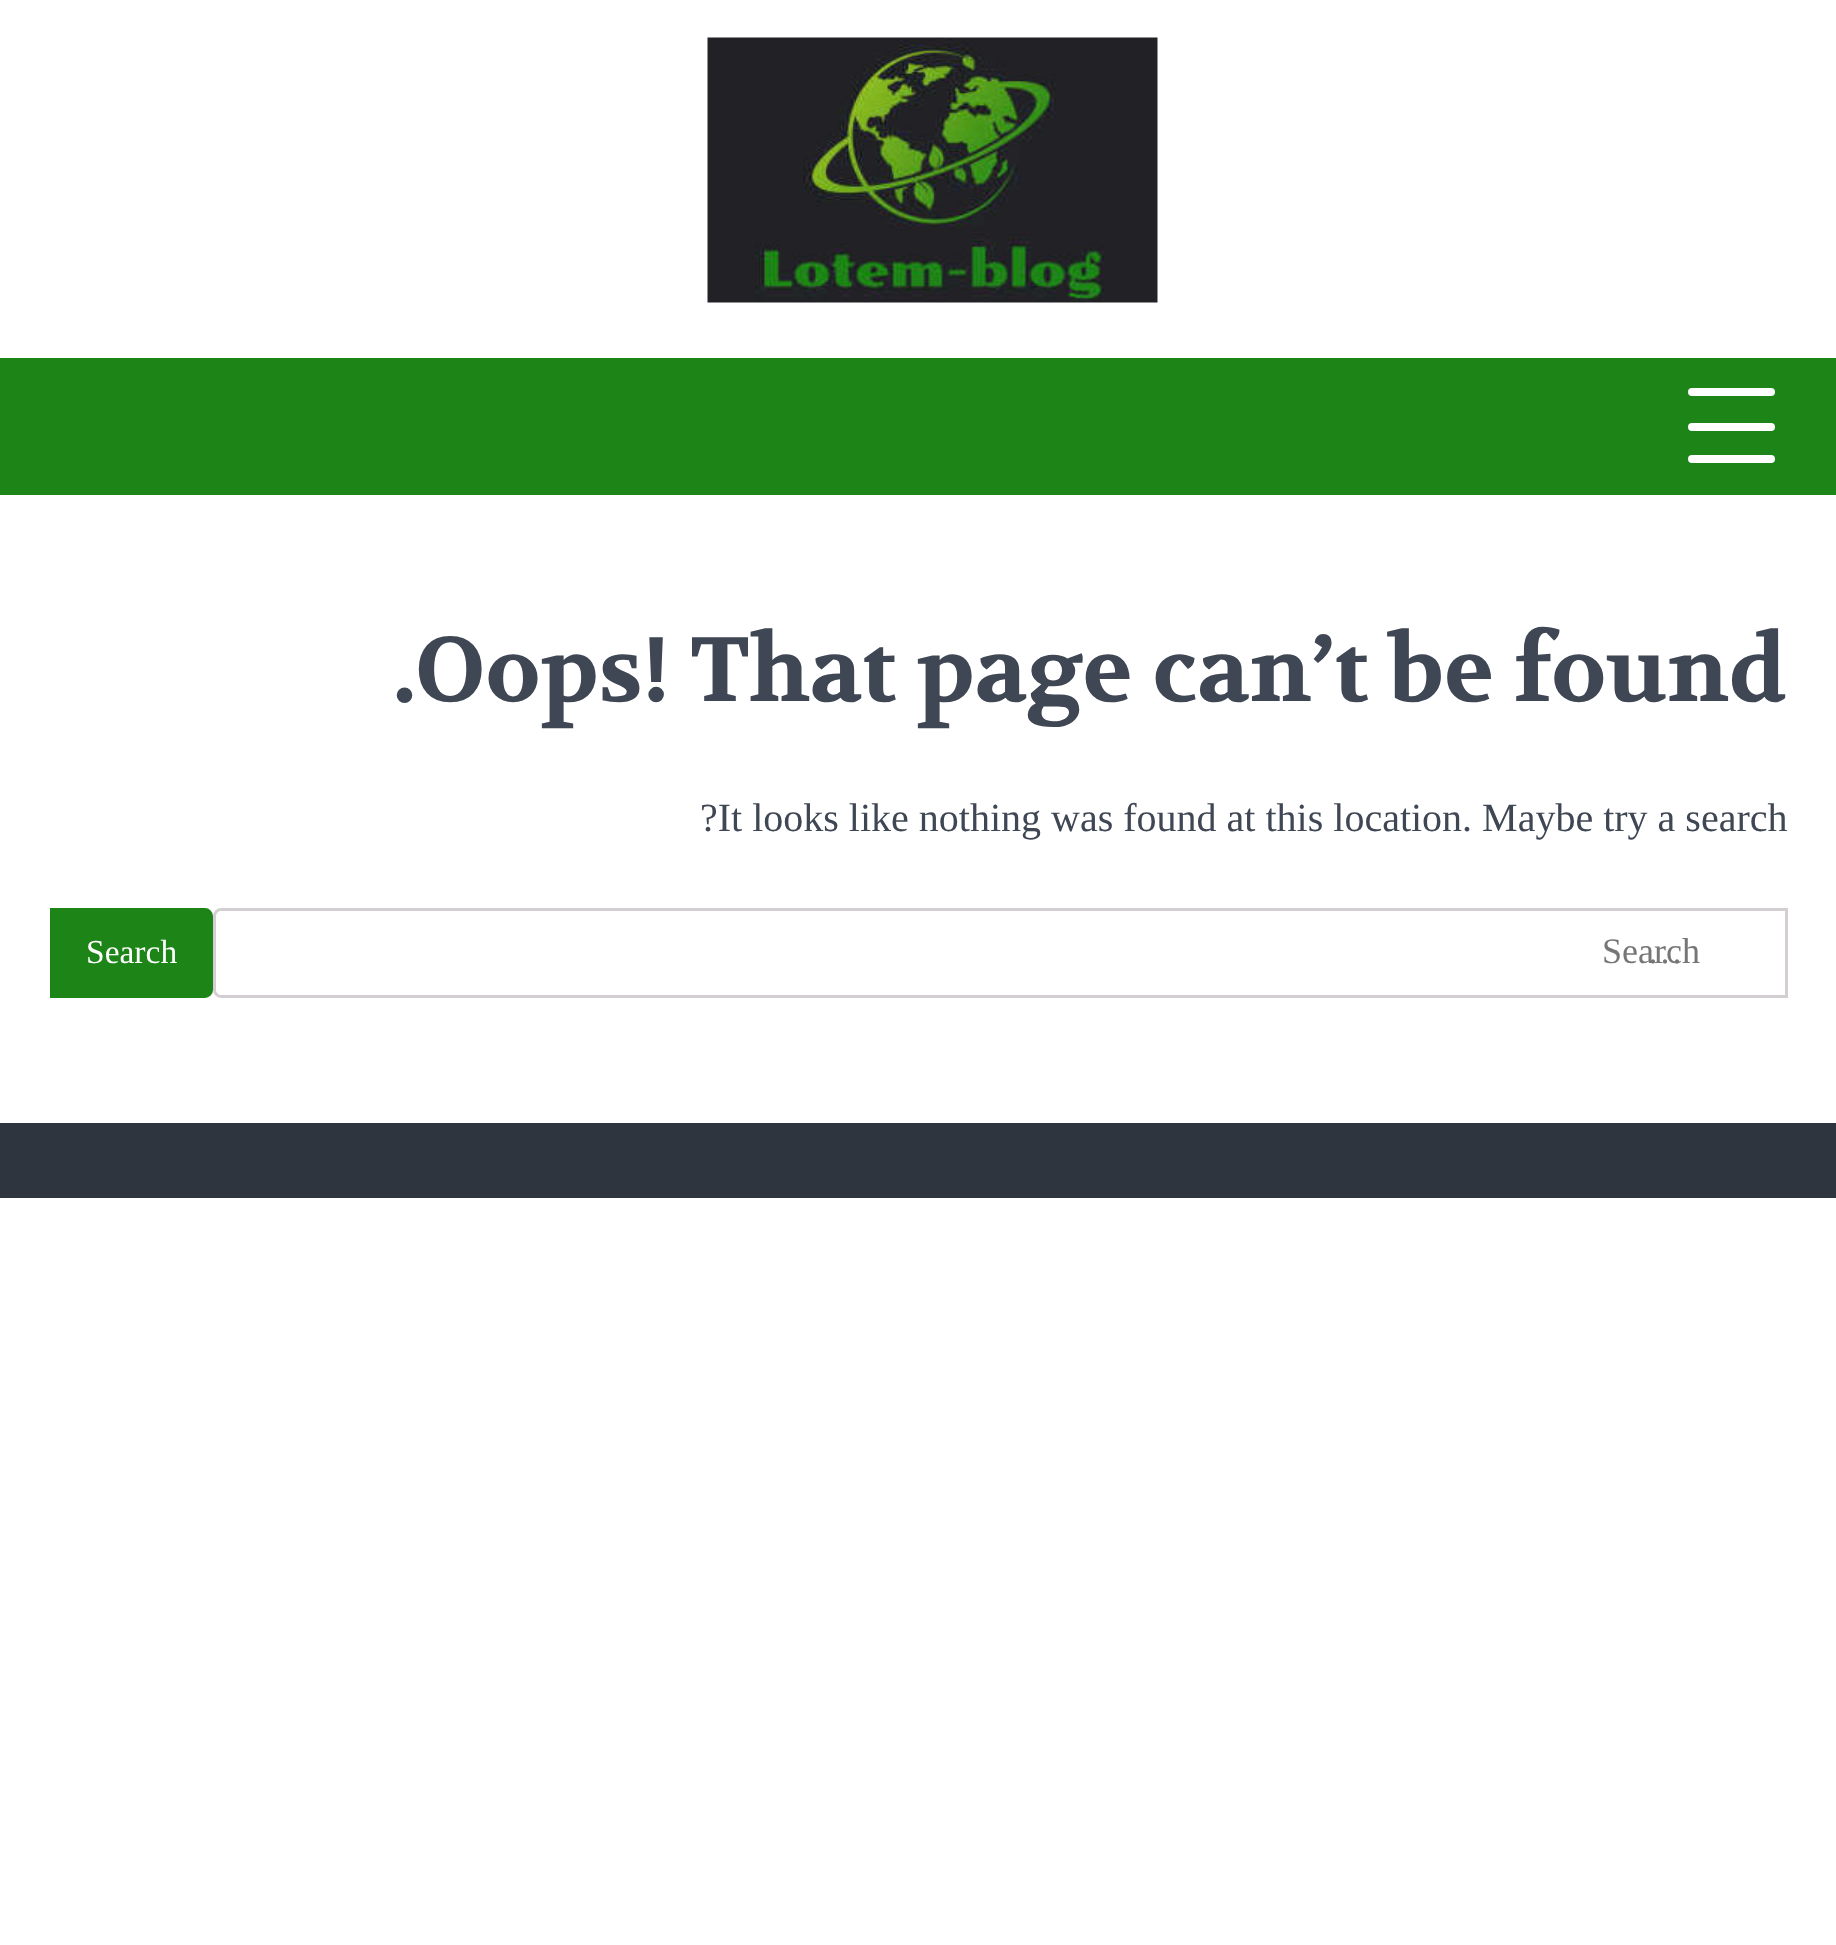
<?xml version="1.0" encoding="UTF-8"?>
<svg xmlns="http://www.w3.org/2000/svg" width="1836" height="1945">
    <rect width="100%" height="100%" fill="#FFFFFF"/>
    <image x="707" y="37" width="451" height="266" href="img_01.png"/>
    <rect x="0" y="358" width="1836" height="137" fill="#1D8517"/>
    <rect x="1688" y="388" width="87" height="8" rx="4" fill="#FFFFFF"/>
    <rect x="1688" y="423" width="87" height="8" rx="4" fill="#FFFFFF"/>
    <rect x="1688" y="455" width="87" height="8" rx="4" fill="#FFFFFF"/>
    <text x="393" y="701" font-family="Volkhov" font-size="91" font-weight="700" fill="#3F4654">.Oops! That page can’t be found</text>
    <text x="700" y="831" font-family="Liberation Serif" font-size="40" fill="#3F4654">?It looks like nothing was found at this location. Maybe try a search</text>
    <path d="M 51.5 909.5 H 205 C 208.5 909.5 211.5 912.5 211.5 916 V 990 C 211.5 993.5 208.5 996.5 205 996.5 H 51.5 Z" fill="#1D8517" stroke="#1D8517" stroke-width="3"/>
    <text x="86" y="963" font-family="Liberation Serif" font-size="33.5" fill="#FFFFFF">Search</text>
    <path d="M 221 909.5 H 1786.5 V 996.5 H 221 C 217.5 996.5 214.5 993.5 214.5 990 V 916 C 214.5 912.5 217.5 909.5 221 909.5 Z" fill="none" stroke="#D3CED2" stroke-width="3"/>
    <text x="1602" y="963" font-family="Liberation Serif" font-size="36" fill="#767676">Search</text>
    <text x="1647" y="963" font-family="Liberation Serif" font-size="36" fill="#767676">…</text>
    <rect x="0" y="1123" width="1836" height="75" fill="#2F353E"/>
</svg>
